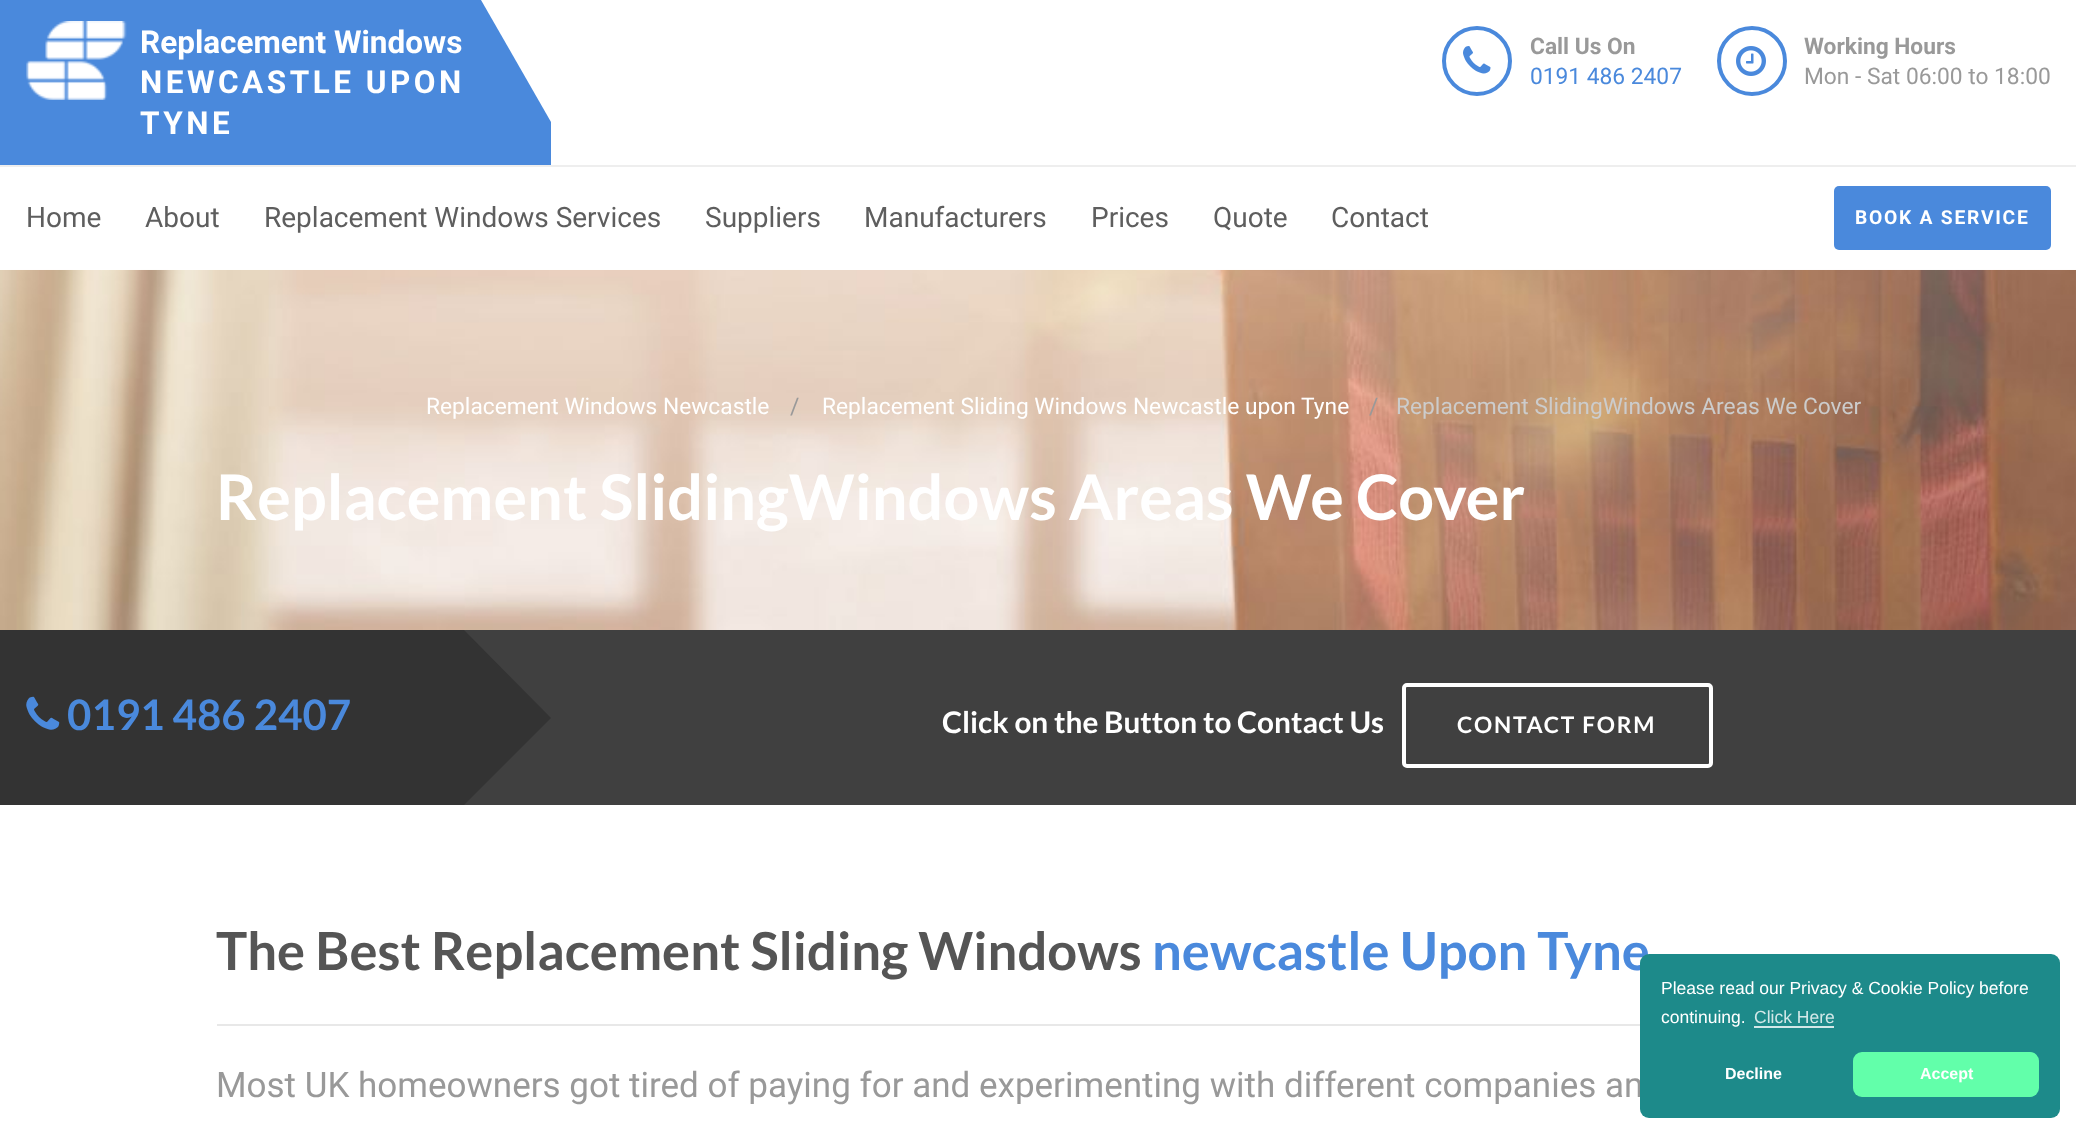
<?xml version="1.0" encoding="UTF-8"?>
<svg xmlns="http://www.w3.org/2000/svg" width="2076" height="1135">
    <rect width="100%" height="100%" fill="#FFFFFF"/>
    <rect x="0" y="0" width="551" height="165" fill="#4A89DC"/>
    <image x="26" y="21" width="101" height="79" href="img_01.png"/>
    <text x="140" y="53" font-family="Roboto" font-size="31.5" font-weight="700" fill="#FFFFFF">Replacement Windows</text>
    <text font-family="Roboto" font-size="31.5" font-weight="700" letter-spacing="3.5" fill="#FFFFFF">
        <tspan x="140" y="93">NEWCASTLE UPON</tspan>
        <tspan x="140" y="134">TYNE</tspan>
    </text>
    <path d="M 551 0 V 122 L 481 0 Z" fill="#FFFFFF"/>
    <circle cx="1477" cy="61" r="33" fill="none" stroke="#4A89DC" stroke-width="4"/>
    <image x="1463" y="46" width="28" height="28" href="img_02.png"/>
    <text x="1530" y="54" font-family="Roboto" font-size="22.75" font-weight="700" fill="#999999">Call Us On</text>
    <text x="1530" y="84" font-family="Roboto" font-size="22.75" fill="#4A89DC">0191 486 2407</text>
    <circle cx="1752" cy="61" r="33" fill="none" stroke="#4A89DC" stroke-width="4"/>
    <image x="1736" y="46" width="30" height="30" href="img_03.png"/>
    <text x="1804" y="54" font-family="Roboto" font-size="22.75" font-weight="700" fill="#999999">Working Hours</text>
    <text x="1804" y="84" font-family="Roboto" font-size="22.75" fill="#999999">Mon - Sat 06:00 to 18:00</text>
    <image x="0" y="269" width="2076" height="361" href="img_04.png"/>
    <rect x="0" y="269" width="2076" height="1" fill="#FFFFFF" fill-opacity="0.97"/>
    <rect x="0" y="165" width="2076" height="2" fill="#EEEEEE"/>
    <text x="26" y="227" font-family="Roboto" font-size="28" fill="#5E5E5E">Home</text>
    <text x="145" y="227" font-family="Roboto" font-size="28" fill="#5E5E5E">About</text>
    <text x="264" y="227" font-family="Roboto" font-size="28" fill="#5E5E5E">Replacement Windows Services</text>
    <text x="705" y="227" font-family="Roboto" font-size="28" fill="#5E5E5E">Suppliers</text>
    <text x="864" y="227" font-family="Roboto" font-size="28" fill="#5E5E5E">Manufacturers</text>
    <text x="1091" y="227" font-family="Roboto" font-size="28" fill="#5E5E5E">Prices</text>
    <text x="1213" y="227" font-family="Roboto" font-size="28" fill="#5E5E5E">Quote</text>
    <text x="1331" y="227" font-family="Roboto" font-size="28" fill="#5E5E5E">Contact</text>
    <rect x="1834" y="186" width="217" height="64" rx="5" fill="#4A89DC"/>
    <text x="1855" y="224" font-family="Roboto" font-size="19.25" font-weight="700" letter-spacing="1.75" fill="#FFFFFF">BOOK A SERVICE</text>
    <text x="426" y="414" font-family="Roboto" font-size="22.75" fill="#FFFFFF">Replacement Windows Newcastle</text>
    <text x="790" y="414" font-family="Roboto" font-size="22.75" fill="#999999">/</text>
    <text x="822" y="414" font-family="Roboto" font-size="22.75" fill="#FFFFFF">Replacement Sliding Windows Newcastle upon Tyne</text>
    <text x="1369" y="414" font-family="Roboto" font-size="22.75" fill="#999999">/</text>
    <text x="1396" y="414" font-family="Roboto" font-size="22.75" fill="#CCCCCC">Replacement SlidingWindows Areas We Cover</text>
    <text x="216" y="520" font-family="Lato" font-size="63" font-weight="700" fill="#FFFFFF">Replacement SlidingWindows Areas We Cover</text>
    <rect x="551" y="630" width="1525" height="175" fill="#404040"/>
    <rect x="0" y="630" width="551" height="175" fill="#333333"/>
    <image x="26" y="696" width="34" height="34" href="img_05.png"/>
    <text x="67" y="730" font-family="Lato" font-size="42" font-weight="700" fill="#4A89DC">0191 486 2407</text>
    <path d="M 551 630 V 718 L 464 630 Z" fill="#404040"/>
    <path d="M 551 805 H 464 L 551 718 Z" fill="#404040"/>
    <text x="942" y="733" font-family="Lato" font-size="29.75" font-weight="700" fill="#FFFFFF">Click on the Button to Contact Us</text>
    <rect x="1404" y="685" width="307" height="81" rx="3" fill="none" stroke="#FFFFFF" stroke-width="4"/>
    <text x="1457" y="733" font-family="Lato" font-size="22.75" font-weight="700" letter-spacing="1.75" fill="#FFFFFF">CONTACT FORM</text>
    <text x="216" y="970" font-family="Lato" font-size="52.5" font-weight="700" fill="#555555">The Best Replacement Sliding Windows</text>
    <text x="1152" y="970" font-family="Lato" font-size="52.5" font-weight="700" fill="#4A89DC">newcastle Upon Tyne</text>
    <rect x="217" y="1024" width="1423" height="2" fill="#E8E8E8"/>
    <text x="216" y="1097" font-family="Roboto" font-size="35" fill="#999999">Most UK homeowners got tired of paying for and experimenting with different companies an</text>
    <rect x="1640" y="954" width="420" height="164" rx="9" fill="#1D8A8A"/>
    <text font-family="Liberation Sans" font-size="17.5" fill="#FFFFFF">
        <tspan x="1661" y="994">Please read our Privacy &amp; Cookie Policy before</tspan>
        <tspan x="1661" y="1023">continuing.</tspan>
    </text>
    <text x="1754" y="1023" font-family="Liberation Sans" font-size="17.5" fill="#D2E8E8">Click Here</text>
    <rect x="1754" y="1026" width="80" height="2" fill="#D2E8E8"/>
    <text x="1725" y="1079" font-family="Liberation Sans" font-size="16" font-weight="700" fill="#FFFFFF">Decline</text>
    <rect x="1853" y="1052" width="186" height="45" rx="9" fill="#62FFAA"/>
    <text x="1920" y="1079" font-family="Liberation Sans" font-size="16" font-weight="700" fill="#FFFFFF">Accept</text>
</svg>
